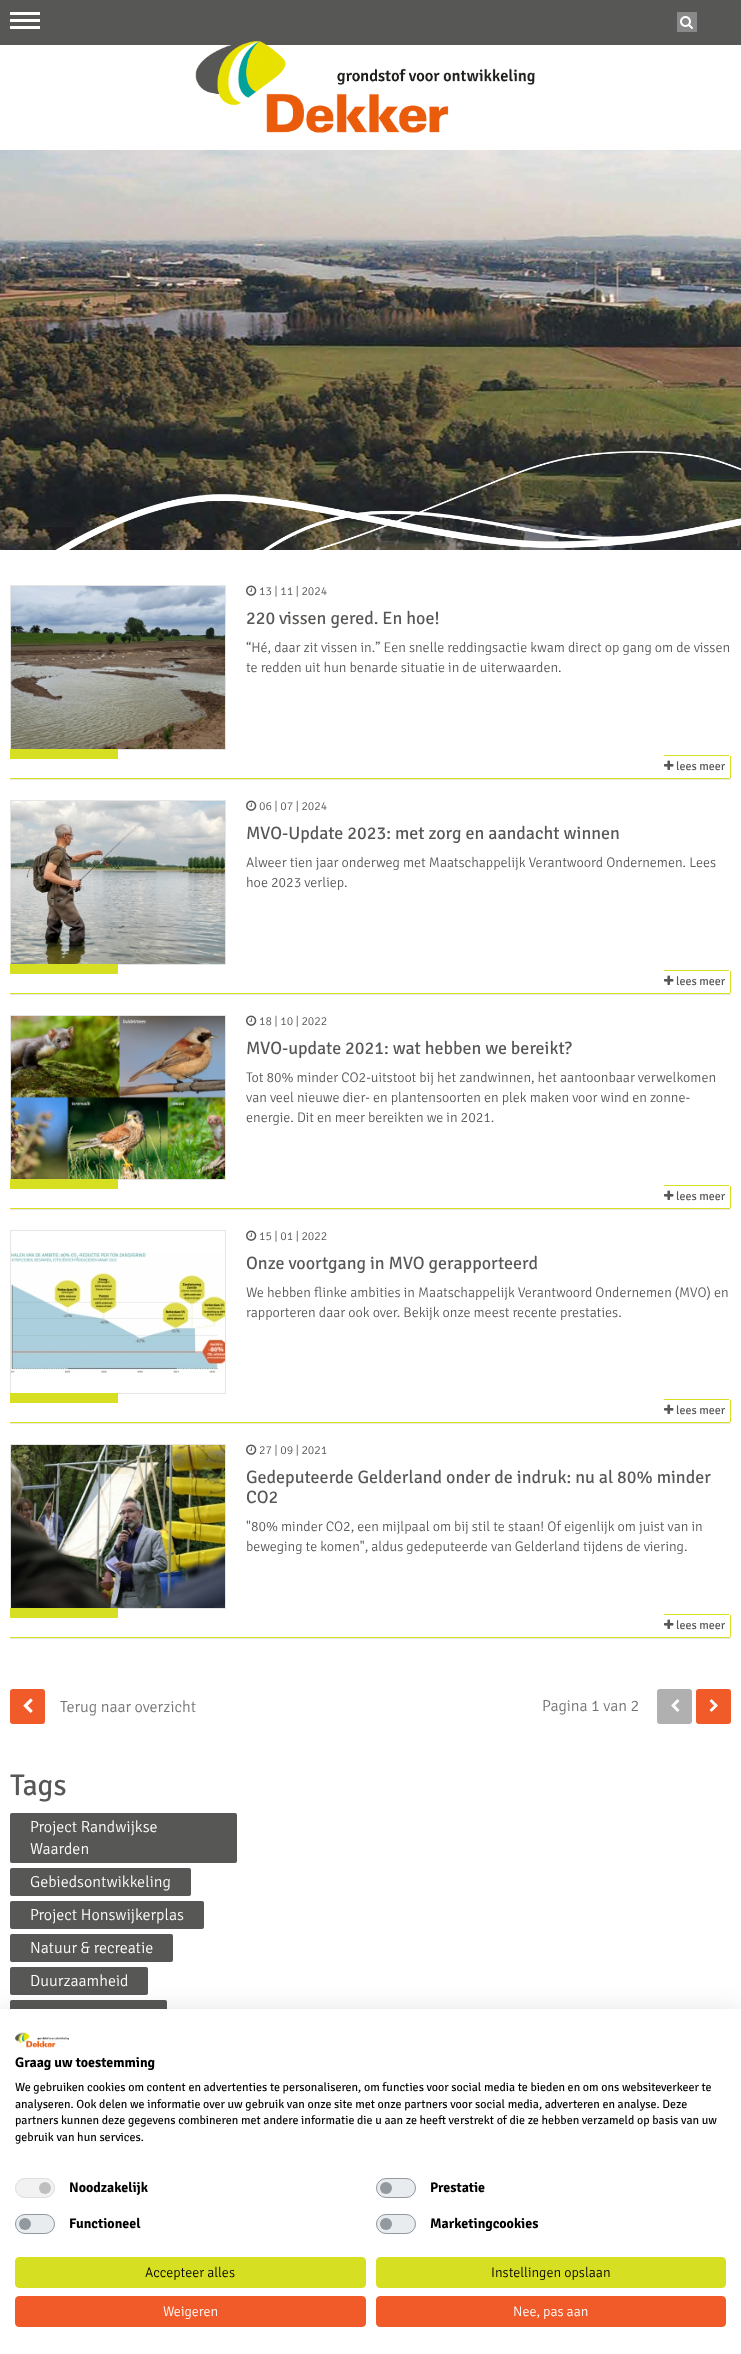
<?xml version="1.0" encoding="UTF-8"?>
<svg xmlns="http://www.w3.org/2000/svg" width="741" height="2354">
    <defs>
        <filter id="blur1" x="-50%" y="-200%" width="200%" height="500%"><feGaussianBlur stdDeviation="12"/></filter>
    </defs>
    <rect width="100%" height="100%" fill="#FFFFFF"/>
    <rect x="0" y="0" width="741" height="45" fill="#575756"/>
    <rect x="677" y="12" width="20" height="20" fill="#8A8989"/>
    <image x="680" y="16" width="13" height="13" href="img_01.png"/>
    <image x="195" y="41" width="340" height="92" href="img_02.png"/>
    <rect x="10" y="19" width="30" height="3" fill="#FFFFFF"/>
    <rect x="10" y="12" width="30" height="3" fill="#FFFFFF"/>
    <rect x="10" y="26" width="30" height="3" fill="#FFFFFF"/>
    <image x="0" y="150" width="741" height="400" href="img_03.png"/>
    <image x="55" y="451" width="686" height="99" href="img_04.png"/>
    <rect x="10" y="779" width="721" height="1" fill="#E7E7E7"/>
    <rect x="10.5" y="585.5" width="215" height="164" fill="none" stroke="#E5E5E5"/>
    <image x="11" y="586" width="214" height="163" href="img_05.png"/>
    <rect x="10" y="749" width="108" height="10" fill="#D7DF23"/>
    <image x="246" y="585" width="11" height="11" href="img_06.png"/>
    <text x="259" y="595" font-family="Signika Negative" font-size="12" font-weight="300" fill="#575756">13 | 11 | 2024</text>
    <text x="246" y="624" font-family="Signika Negative" font-size="18" fill="#575756">220 vissen gered. En hoe!</text>
    <text font-family="Signika Negative" font-size="14" font-weight="300" fill="#575756">
        <tspan x="246" y="652">“Hé, daar zit vissen in.” Een snelle reddingsactie kwam direct op gang om de vissen</tspan>
        <tspan x="246" y="672">te redden uit hun benarde situatie in de uiterwaarden.</tspan>
    </text>
    <rect x="730" y="756" width="1" height="22" fill="#D7DF23"/>
    <rect x="10" y="778" width="720" height="1" fill="#D7DF23"/>
    <rect x="664" y="755" width="65" height="1" fill="#D7DF23"/>
    <image x="664" y="760" width="10" height="10" href="img_07.png"/>
    <text x="676" y="770" font-family="Signika Negative" font-size="12" fill="#575756">lees meer</text>
    <rect x="10" y="994" width="721" height="1" fill="#E7E7E7"/>
    <rect x="10.5" y="800.5" width="215" height="164" fill="none" stroke="#E5E5E5"/>
    <image x="11" y="801" width="214" height="163" href="img_08.png"/>
    <rect x="10" y="964" width="108" height="10" fill="#D7DF23"/>
    <image x="246" y="800" width="11" height="11" href="img_06.png"/>
    <text x="259" y="810" font-family="Signika Negative" font-size="12" font-weight="300" fill="#575756">06 | 07 | 2024</text>
    <text x="246" y="839" font-family="Signika Negative" font-size="18" fill="#575756">MVO-Update 2023: met zorg en aandacht winnen</text>
    <text font-family="Signika Negative" font-size="14" font-weight="300" fill="#575756">
        <tspan x="246" y="867">Alweer tien jaar onderweg met Maatschappelijk Verantwoord Ondernemen. Lees</tspan>
        <tspan x="246" y="887">hoe 2023 verliep.</tspan>
    </text>
    <rect x="730" y="971" width="1" height="22" fill="#D7DF23"/>
    <rect x="10" y="993" width="720" height="1" fill="#D7DF23"/>
    <rect x="664" y="970" width="65" height="1" fill="#D7DF23"/>
    <image x="664" y="975" width="10" height="10" href="img_07.png"/>
    <text x="676" y="985" font-family="Signika Negative" font-size="12" fill="#575756">lees meer</text>
    <rect x="10" y="1209" width="721" height="1" fill="#E7E7E7"/>
    <rect x="10.5" y="1015.5" width="215" height="164" fill="none" stroke="#E5E5E5"/>
    <image x="11" y="1016" width="214" height="163" href="img_09.png"/>
    <rect x="10" y="1179" width="108" height="10" fill="#D7DF23"/>
    <image x="246" y="1015" width="11" height="11" href="img_06.png"/>
    <text x="259" y="1025" font-family="Signika Negative" font-size="12" font-weight="300" fill="#575756">18 | 10 | 2022</text>
    <text x="246" y="1054" font-family="Signika Negative" font-size="18" fill="#575756">MVO-update 2021: wat hebben we bereikt?</text>
    <text font-family="Signika Negative" font-size="14" font-weight="300" fill="#575756">
        <tspan x="246" y="1082">Tot 80% minder CO2-uitstoot bij het zandwinnen, het aantoonbaar verwelkomen</tspan>
        <tspan x="246" y="1102">van veel nieuwe dier- en plantensoorten en plek maken voor wind en zonne-</tspan>
        <tspan x="246" y="1122">energie. Dit en meer bereikten we in 2021.</tspan>
    </text>
    <rect x="730" y="1186" width="1" height="22" fill="#D7DF23"/>
    <rect x="10" y="1208" width="720" height="1" fill="#D7DF23"/>
    <rect x="664" y="1185" width="65" height="1" fill="#D7DF23"/>
    <image x="664" y="1190" width="10" height="10" href="img_07.png"/>
    <text x="676" y="1200" font-family="Signika Negative" font-size="12" fill="#575756">lees meer</text>
    <rect x="10" y="1423" width="721" height="1" fill="#E7E7E7"/>
    <rect x="10.5" y="1230.5" width="215" height="163" fill="none" stroke="#E5E5E5"/>
    <image x="11" y="1252" width="214" height="121" href="img_10.png"/>
    <rect x="10" y="1393" width="108" height="10" fill="#D7DF23"/>
    <image x="246" y="1230" width="11" height="11" href="img_06.png"/>
    <text x="259" y="1240" font-family="Signika Negative" font-size="12" font-weight="300" fill="#575756">15 | 01 | 2022</text>
    <text x="246" y="1269" font-family="Signika Negative" font-size="18" fill="#575756">Onze voortgang in MVO gerapporteerd</text>
    <text font-family="Signika Negative" font-size="14" font-weight="300" fill="#575756">
        <tspan x="246" y="1297">We hebben flinke ambities in Maatschappelijk Verantwoord Ondernemen (MVO) en</tspan>
        <tspan x="246" y="1317">rapporteren daar ook over. Bekijk onze meest recente prestaties.</tspan>
    </text>
    <rect x="730" y="1400" width="1" height="22" fill="#D7DF23"/>
    <rect x="10" y="1422" width="720" height="1" fill="#D7DF23"/>
    <rect x="664" y="1399" width="65" height="1" fill="#D7DF23"/>
    <image x="664" y="1404" width="10" height="10" href="img_07.png"/>
    <text x="676" y="1414" font-family="Signika Negative" font-size="12" fill="#575756">lees meer</text>
    <rect x="10" y="1638" width="721" height="1" fill="#E7E7E7"/>
    <rect x="10.5" y="1444.5" width="215" height="164" fill="none" stroke="#E5E5E5"/>
    <image x="11" y="1445" width="214" height="163" href="img_11.png"/>
    <rect x="10" y="1608" width="108" height="10" fill="#D7DF23"/>
    <image x="246" y="1444" width="11" height="11" href="img_06.png"/>
    <text x="259" y="1454" font-family="Signika Negative" font-size="12" font-weight="300" fill="#575756">27 | 09 | 2021</text>
    <text font-family="Signika Negative" font-size="18" fill="#575756">
        <tspan x="246" y="1483">Gedeputeerde Gelderland onder de indruk: nu al 80% minder</tspan>
        <tspan x="246" y="1503">CO2</tspan>
    </text>
    <text font-family="Signika Negative" font-size="14" font-weight="300" fill="#575756">
        <tspan x="246" y="1531">"80% minder CO2, een mijlpaal om bij stil te staan! Of eigenlijk om juist van in</tspan>
        <tspan x="246" y="1551">beweging te komen", aldus gedeputeerde van Gelderland tijdens de viering.</tspan>
    </text>
    <rect x="730" y="1615" width="1" height="22" fill="#D7DF23"/>
    <rect x="10" y="1637" width="720" height="1" fill="#D7DF23"/>
    <rect x="664" y="1614" width="65" height="1" fill="#D7DF23"/>
    <image x="664" y="1619" width="10" height="10" href="img_07.png"/>
    <text x="676" y="1629" font-family="Signika Negative" font-size="12" fill="#575756">lees meer</text>
    <rect x="10" y="1689" width="35" height="35" rx="3" fill="#F15A29"/>
    <image x="23" y="1698" width="10" height="15" href="img_12.png"/>
    <text x="60" y="1712" font-family="Signika Negative" font-size="16" font-weight="300" fill="#727272">Terug naar overzicht</text>
    <text x="542" y="1711" font-family="Signika Negative" font-size="16" font-weight="300" fill="#727272">Pagina 1 van 2</text>
    <rect x="657" y="1689" width="35" height="35" rx="3" fill="#B0B0B0"/>
    <image x="671" y="1699" width="9" height="13" href="img_13.png"/>
    <rect x="696" y="1689" width="35" height="35" rx="3" fill="#F15A29"/>
    <image x="709" y="1699" width="9" height="13" href="img_14.png"/>
    <text x="10" y="1795" font-family="Signika Negative" font-size="30" fill="#575756">Tags</text>
    <rect x="10" y="1813" width="227" height="50" rx="2" fill="#575756"/>
    <text font-family="Signika Negative" font-size="16" font-weight="300" fill="#FFFFFF">
        <tspan x="30" y="1832">Project Randwijkse</tspan>
        <tspan x="30" y="1854">Waarden</tspan>
    </text>
    <rect x="10" y="1868" width="181" height="28" rx="2" fill="#575756"/>
    <text x="30" y="1887" font-family="Signika Negative" font-size="16" font-weight="300" fill="#FFFFFF">Gebiedsontwikkeling</text>
    <rect x="10" y="1901" width="194" height="28" rx="2" fill="#575756"/>
    <text x="30" y="1920" font-family="Signika Negative" font-size="16" font-weight="300" fill="#FFFFFF">Project Honswijkerplas</text>
    <rect x="10" y="1934" width="163" height="28" rx="2" fill="#575756"/>
    <text x="30" y="1953" font-family="Signika Negative" font-size="16" font-weight="300" fill="#FFFFFF">Natuur &amp; recreatie</text>
    <rect x="10" y="1967" width="138" height="28" rx="2" fill="#575756"/>
    <text x="30" y="1986" font-family="Signika Negative" font-size="16" font-weight="300" fill="#FFFFFF">Duurzaamheid</text>
    <rect x="10" y="2000" width="157" height="28" rx="2" fill="#575756"/>
    <rect x="0" y="2009" width="741" height="345" fill="#000000" fill-opacity="0.1" filter="url(#blur1)"/>
    <rect x="0" y="2009" width="741" height="345" fill="#FFFFFF"/>
    <image x="15" y="2032" width="54" height="16" href="img_15.png"/>
    <text x="15" y="2067" font-family="Signika Negative" font-size="14" font-weight="700" fill="#000000">Graag uw toestemming</text>
    <text font-family="Signika Negative" font-size="12" fill="#000000">
        <tspan x="15" y="2091">We gebruiken cookies om content en advertenties te personaliseren, om functies voor social media te bieden en om ons websiteverkeer te</tspan>
        <tspan x="15" y="2108">analyseren. Ook delen we informatie over uw gebruik van onze site met onze partners voor social media, adverteren en analyse. Deze</tspan>
        <tspan x="15" y="2124">partners kunnen deze gegevens combineren met andere informatie die u aan ze heeft verstrekt of die ze hebben verzameld op basis van uw</tspan>
        <tspan x="15" y="2141">gebruik van hun services.</tspan>
    </text>
    <rect x="15" y="2178" width="40" height="20" rx="10" fill="#F2F2F2"/>
    <circle cx="45" cy="2188" r="6" fill="#BFBFBF"/>
    <rect x="15.5" y="2178.5" width="39" height="19" rx="9.5" fill="none" stroke="#DFDFDF"/>
    <text x="69" y="2192" font-family="Signika Negative" font-size="14" font-weight="700" fill="#000000">Noodzakelijk</text>
    <rect x="376" y="2178" width="40" height="20" rx="10" fill="#E9ECEF"/>
    <circle cx="386" cy="2188" r="6" fill="#92999F"/>
    <rect x="376.5" y="2178.5" width="39" height="19" rx="9.5" fill="none" stroke="#6C757D" stroke-opacity="0.7"/>
    <text x="430" y="2192" font-family="Signika Negative" font-size="14" font-weight="700" fill="#000000">Prestatie</text>
    <rect x="15" y="2214" width="40" height="20" rx="10" fill="#E9ECEF"/>
    <circle cx="25" cy="2224" r="6" fill="#92999F"/>
    <rect x="15.5" y="2214.5" width="39" height="19" rx="9.5" fill="none" stroke="#6C757D" stroke-opacity="0.7"/>
    <text x="69" y="2228" font-family="Signika Negative" font-size="14" font-weight="700" fill="#000000">Functioneel</text>
    <rect x="376" y="2214" width="40" height="20" rx="10" fill="#E9ECEF"/>
    <circle cx="386" cy="2224" r="6" fill="#92999F"/>
    <rect x="376.5" y="2214.5" width="39" height="19" rx="9.5" fill="none" stroke="#6C757D" stroke-opacity="0.7"/>
    <text x="430" y="2228" font-family="Signika Negative" font-size="14" font-weight="700" fill="#000000">Marketingcookies</text>
    <rect x="15.5" y="2257.5" width="350" height="30" rx="3.5" fill="#D7DF23" stroke="#D7DF23"/>
    <text x="145" y="2277" font-family="Signika Negative" font-size="14" font-weight="300" fill="#000000">Accepteer alles</text>
    <rect x="376.5" y="2257.5" width="349" height="30" rx="3.5" fill="#D7DF23" stroke="#D7DF23"/>
    <text x="491" y="2277" font-family="Signika Negative" font-size="14" font-weight="300" fill="#000000">Instellingen opslaan</text>
    <rect x="15.5" y="2296.5" width="350" height="30" rx="3.5" fill="#F15A29" stroke="#F15A29"/>
    <text x="163" y="2316" font-family="Signika Negative" font-size="14" font-weight="300" fill="#FFFFFF">Weigeren</text>
    <rect x="376.5" y="2296.5" width="349" height="30" rx="3.5" fill="#F15A29" stroke="#F15A29"/>
    <text x="513" y="2316" font-family="Signika Negative" font-size="14" font-weight="300" fill="#FFFFFF">Nee, pas aan</text>
</svg>
